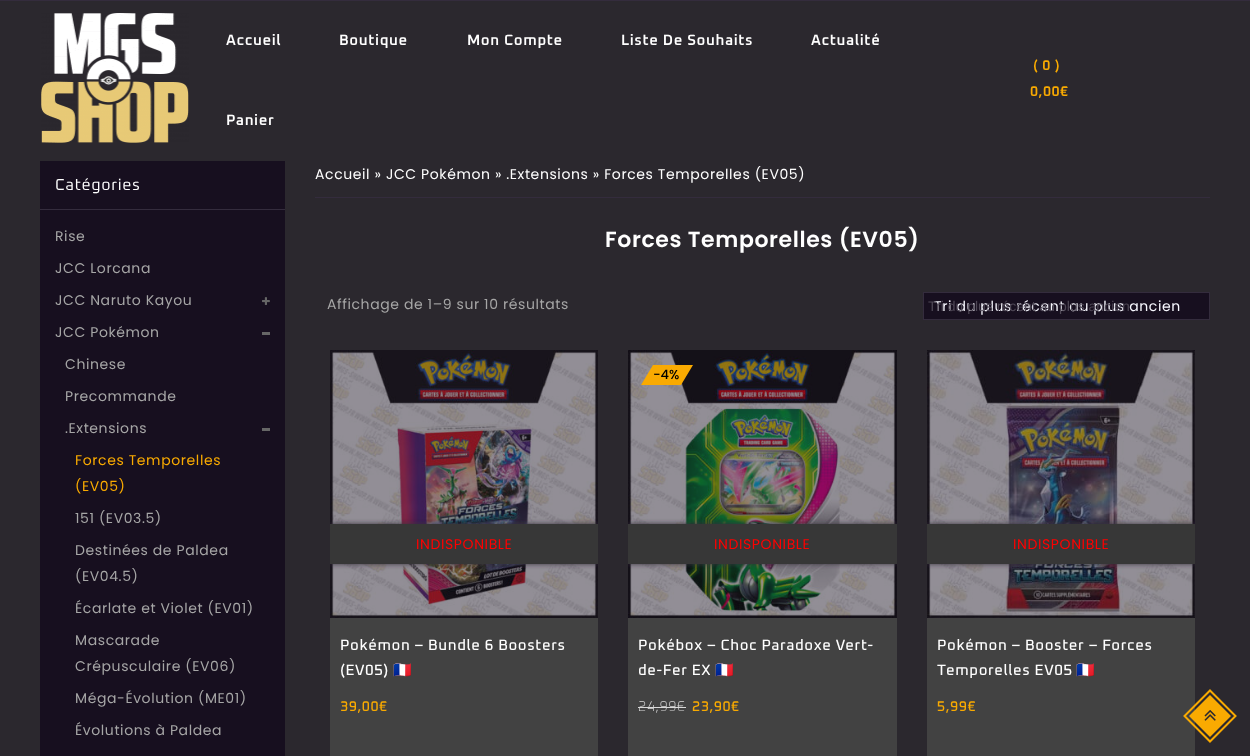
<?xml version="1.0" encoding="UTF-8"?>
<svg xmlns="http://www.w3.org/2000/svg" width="1250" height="756">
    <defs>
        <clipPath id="clip1"><rect x="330" y="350" width="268" height="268"/></clipPath>
        <filter id="blur1" x="-50%" y="-200%" width="200%" height="500%"><feGaussianBlur stdDeviation="2.5"/></filter>
        <clipPath id="clip2"><rect x="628" y="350" width="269" height="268"/></clipPath>
        <clipPath id="clip3"><rect x="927" y="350" width="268" height="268"/></clipPath>
    </defs>
    <rect width="100%" height="100%" fill="#2B282E"/>
    <rect x="0" y="0" width="1250" height="1" fill="#342C3D"/>
    <image x="41" y="13" width="148" height="130" href="img_01.png"/>
    <text x="226" y="45" font-family="Oxanium" font-size="15" font-weight="600" letter-spacing="0.6" fill="#FFFFFF">Accueil</text>
    <text x="339" y="45" font-family="Oxanium" font-size="15" font-weight="600" letter-spacing="0.6" fill="#FFFFFF">Boutique</text>
    <text x="467" y="45" font-family="Oxanium" font-size="15" font-weight="600" letter-spacing="0.6" fill="#FFFFFF">Mon Compte</text>
    <text x="621" y="45" font-family="Oxanium" font-size="15" font-weight="600" letter-spacing="0.6" fill="#FFFFFF">Liste De Souhaits</text>
    <text x="811" y="45" font-family="Oxanium" font-size="15" font-weight="600" letter-spacing="0.6" fill="#FFFFFF">Actualité</text>
    <text x="226" y="125" font-family="Oxanium" font-size="15" font-weight="600" letter-spacing="0.6" fill="#FFFFFF">Panier</text>
    <text x="1033" y="70" font-family="Oxanium" font-size="14" font-weight="600" letter-spacing="0.6" fill="#F9AA01">( 0 )</text>
    <text x="1030" y="96" font-family="Oxanium" font-size="14" font-weight="600" letter-spacing="0.5" fill="#F9AA01">0,00€</text>
    <rect x="40" y="161" width="245" height="595" fill="#170F1F"/>
    <rect x="40" y="209" width="245" height="1" fill="#342C3D"/>
    <text x="55" y="190" font-family="Oxanium" font-size="16" letter-spacing="0.6" fill="#FFFFFF">Catégories</text>
    <text x="55" y="241" font-family="Poppins" font-size="14" letter-spacing="0.6" fill="#A6A6A6">Rise</text>
    <text x="55" y="273" font-family="Poppins" font-size="14" letter-spacing="0.6" fill="#A6A6A6">JCC Lorcana</text>
    <text x="55" y="305" font-family="Poppins" font-size="14" letter-spacing="0.6" fill="#A6A6A6">JCC Naruto Kayou</text>
    <image x="262" y="297" width="8" height="8" href="img_02.png"/>
    <text x="55" y="337" font-family="Poppins" font-size="14" letter-spacing="0.6" fill="#A6A6A6">JCC Pokémon</text>
    <rect x="262" y="332" width="8" height="3" fill="#666666"/>
    <text x="65" y="369" font-family="Poppins" font-size="14" letter-spacing="0.6" fill="#A6A6A6">Chinese</text>
    <text x="65" y="401" font-family="Poppins" font-size="14" letter-spacing="0.6" fill="#A6A6A6">Precommande</text>
    <text x="65" y="433" font-family="Poppins" font-size="14" letter-spacing="0.6" fill="#A6A6A6">.Extensions</text>
    <rect x="262" y="428" width="8" height="3" fill="#666666"/>
    <text font-family="Poppins" font-size="14" letter-spacing="0.6" fill="#F9AA01">
        <tspan x="75" y="465">Forces Temporelles</tspan>
        <tspan x="75" y="491">(EV05)</tspan>
    </text>
    <text x="75" y="523" font-family="Poppins" font-size="14" letter-spacing="0.6" fill="#A6A6A6">151 (EV03.5)</text>
    <text font-family="Poppins" font-size="14" letter-spacing="0.6" fill="#A6A6A6">
        <tspan x="75" y="555">Destinées de Paldea</tspan>
        <tspan x="75" y="581">(EV04.5)</tspan>
    </text>
    <text x="75" y="613" font-family="Poppins" font-size="14" letter-spacing="0.6" fill="#A6A6A6">Écarlate et Violet (EV01)</text>
    <text font-family="Poppins" font-size="14" letter-spacing="0.6" fill="#A6A6A6">
        <tspan x="75" y="645">Mascarade</tspan>
        <tspan x="75" y="671">Crépusculaire (EV06)</tspan>
    </text>
    <text x="75" y="703" font-family="Poppins" font-size="14" letter-spacing="0.6" fill="#A6A6A6">Méga-Évolution (ME01)</text>
    <text x="75" y="735" font-family="Poppins" font-size="14" letter-spacing="0.6" fill="#A6A6A6">Évolutions à Paldea</text>
    <text x="315" y="179" font-family="Poppins" font-size="14" letter-spacing="0.6" fill="#FFFFFF">Accueil » JCC Pokémon » .Extensions » Forces Temporelles (EV05)</text>
    <rect x="315" y="197" width="895" height="1" fill="#342C3D"/>
    <text x="605" y="247" font-family="Poppins" font-size="22" font-weight="600" letter-spacing="0.6" fill="#FFFFFF">Forces Temporelles (EV05)</text>
    <text x="327" y="309" font-family="Poppins" font-size="14" letter-spacing="0.6" fill="#A6A6A6">Affichage de 1–9 sur 10 résultats</text>
    <rect x="923.5" y="292.5" width="286" height="27" fill="#170F1F" stroke="#342C3D"/>
    <text x="934" y="311" font-family="Poppins" font-size="14" letter-spacing="0.6" fill="#F8F8FF">Tri du plus récent au plus ancien</text>
    <text x="928" y="311" font-family="Liberation Sans" font-size="14" fill="#4F4856">Tri du plus récent au plus ancien</text>
    <image x="330" y="350" width="268" height="268" href="img_03.png"/>
    <g clip-path="url(#clip1)">
        <rect x="330" y="524" width="268" height="40" fill="#342C3D" filter="url(#blur1)"/>
    </g>
    <rect x="330" y="524" width="268" height="40" fill="#373737"/>
    <text x="416" y="549" font-family="Poppins" font-size="14" letter-spacing="0.6" fill="#FF0000">INDISPONIBLE</text>
    <rect x="330" y="618" width="268" height="138" fill="#424242"/>
    <text font-family="Oxanium" font-size="15" font-weight="500" letter-spacing="0.6" fill="#FFFFFF">
        <tspan x="340" y="650">Pokémon – Bundle 6 Boosters</tspan>
        <tspan x="340" y="675">(EV05)</tspan>
    </text>
    <text x="393" y="675" font-family="Noto Color Emoji" font-size="15" letter-spacing="0.6" fill="#FFFFFF">🇫🇷</text>
    <text x="340" y="711" font-family="Oxanium" font-size="14" font-weight="500" letter-spacing="0.6" fill="#F9AA01">39,00€</text>
    <image x="628" y="350" width="269" height="268" href="img_04.png"/>
    <rect x="653" y="365" width="28" height="20" fill="#F9AA01"/>
    <text x="653" y="379" font-family="Poppins" font-size="13" font-weight="500" fill="#000000">-4%</text>
    <path d="M 653 385 H 641 L 653 365 Z M 681 365 H 693 L 681 385 Z" fill="#F9AA01"/>
    <g clip-path="url(#clip2)">
        <rect x="628" y="524" width="269" height="40" fill="#342C3D" filter="url(#blur1)"/>
    </g>
    <rect x="628" y="524" width="269" height="40" fill="#373737"/>
    <text x="714" y="549" font-family="Poppins" font-size="14" letter-spacing="0.6" fill="#FF0000">INDISPONIBLE</text>
    <rect x="628" y="618" width="269" height="138" fill="#424242"/>
    <text font-family="Oxanium" font-size="15" font-weight="500" letter-spacing="0.6" fill="#FFFFFF">
        <tspan x="638" y="650">Pokébox – Choc Paradoxe Vert-</tspan>
        <tspan x="638" y="675">de-Fer EX</tspan>
    </text>
    <text x="715" y="675" font-family="Noto Color Emoji" font-size="15" letter-spacing="0.6" fill="#FFFFFF">🇫🇷</text>
    <text x="638" y="711" font-family="Oxanium" font-size="14" font-weight="200" letter-spacing="0.6" fill="#D9D9D9">24,99€</text>
    <rect x="638" y="707" width="48" height="1" fill="#D9D9D9"/>
    <text x="692" y="711" font-family="Oxanium" font-size="14" font-weight="500" letter-spacing="0.6" fill="#F9AA01">23,90€</text>
    <image x="927" y="350" width="268" height="268" href="img_05.png"/>
    <g clip-path="url(#clip3)">
        <rect x="927" y="524" width="268" height="40" fill="#342C3D" filter="url(#blur1)"/>
    </g>
    <rect x="927" y="524" width="268" height="40" fill="#373737"/>
    <text x="1013" y="549" font-family="Poppins" font-size="14" letter-spacing="0.6" fill="#FF0000">INDISPONIBLE</text>
    <rect x="927" y="618" width="268" height="138" fill="#424242"/>
    <text font-family="Oxanium" font-size="15" font-weight="500" letter-spacing="0.6" fill="#FFFFFF">
        <tspan x="937" y="650">Pokémon – Booster – Forces</tspan>
        <tspan x="937" y="675">Temporelles EV05</tspan>
    </text>
    <text x="1076" y="675" font-family="Noto Color Emoji" font-size="15" letter-spacing="0.6" fill="#FFFFFF">🇫🇷</text>
    <text x="937" y="711" font-family="Oxanium" font-size="14" font-weight="500" letter-spacing="0.6" fill="#F9AA01">5,99€</text>
    <path d="M 1210 695 L 1231 716 L 1210 737 L 1189 716 Z" fill="#F9AA01"/>
    <image x="1204" y="710" width="12" height="11" href="img_06.png"/>
    <path d="M 1210 690.5 L 1235.5 716 L 1210 741.5 L 1184.5 716 Z" fill="none" stroke="#F9AA01" stroke-width="2"/>
</svg>
